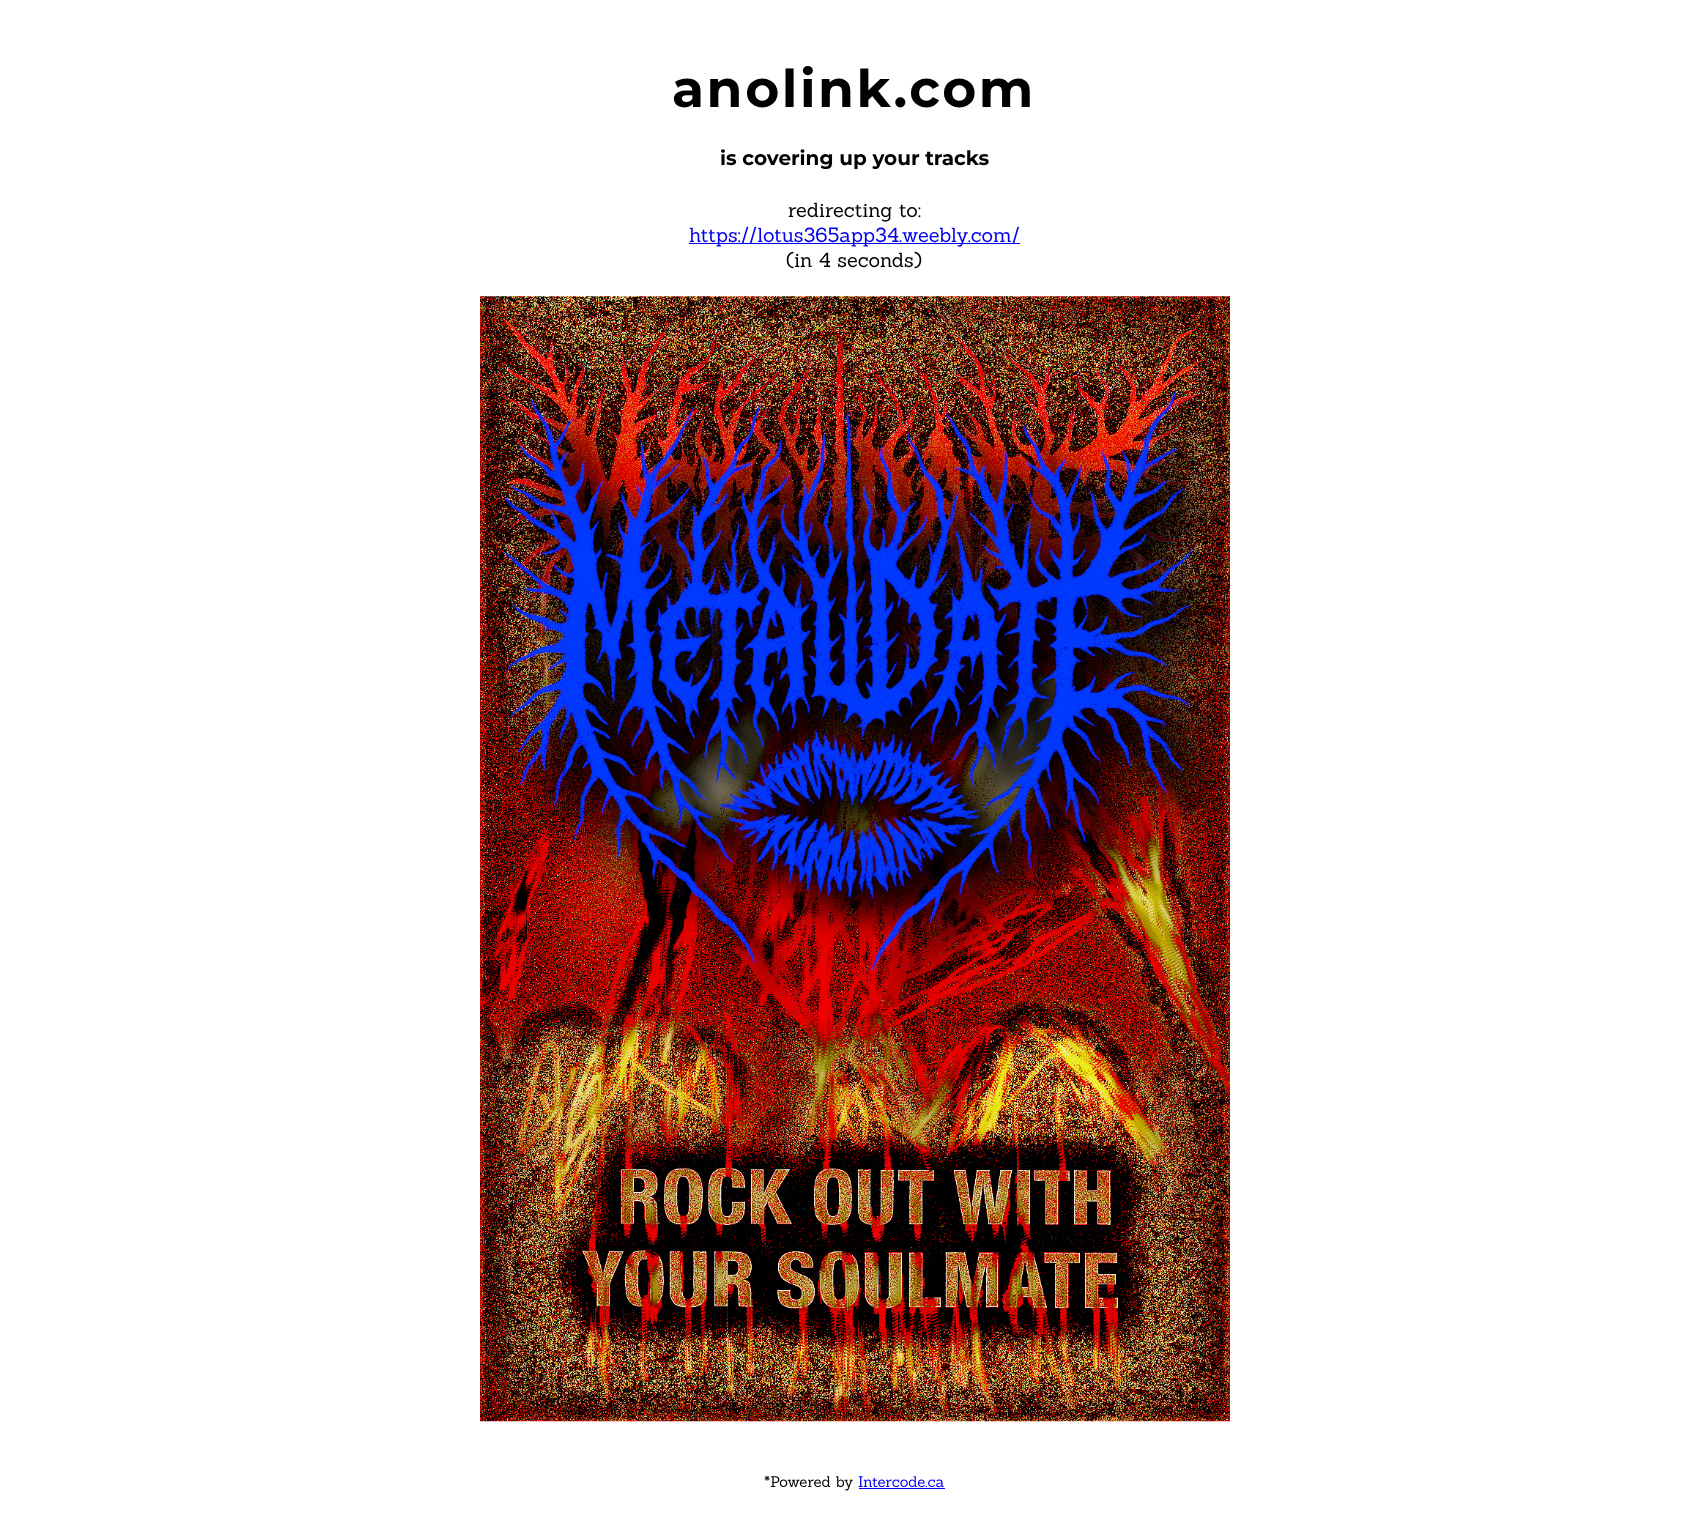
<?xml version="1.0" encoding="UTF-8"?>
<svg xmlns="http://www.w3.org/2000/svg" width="1708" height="1525">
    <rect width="100%" height="100%" fill="#FFFFFF"/>
    <text x="672" y="107" font-family="Montserrat" font-size="52" font-weight="100" letter-spacing="2.5" fill="#000000">anolink.com</text>
    <text x="720" y="165" font-family="Montserrat" font-size="20" font-weight="100" fill="#000000">is covering up your tracks</text>
    <text x="788" y="217" font-family="Sanchez" font-size="20" fill="#000000">redirecting to:</text>
    <rect x="689" y="243" width="331" height="1" fill="#0000EE"/>
    <text x="689" y="242" font-family="Sanchez" font-size="20" fill="#0000EE">https://lotus365app34.weebly.com/</text>
    <text x="786" y="267" font-family="Sanchez" font-size="20" fill="#000000">(in 4 seconds)</text>
    <image x="480" y="296" width="750" height="1126" href="img_01.png"/>
    <text x="764" y="1487" font-family="Sanchez" font-size="15" fill="#000000">*Powered by</text>
    <text x="858" y="1487" font-family="Sanchez" font-size="15" fill="#0000EE">Intercode.ca</text>
    <rect x="859" y="1488" width="86" height="1" fill="#0000EE"/>
</svg>
